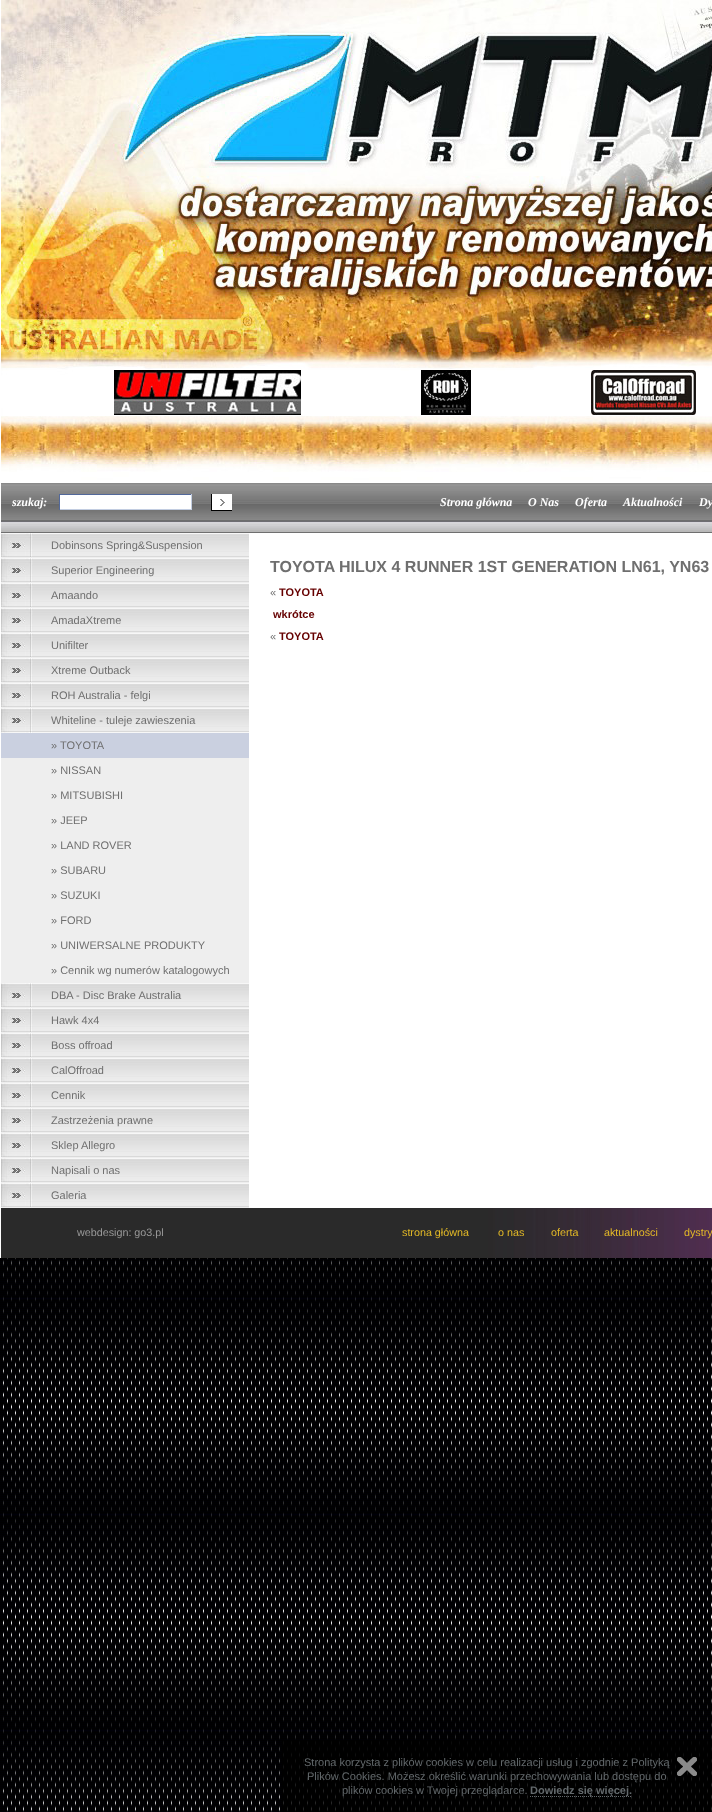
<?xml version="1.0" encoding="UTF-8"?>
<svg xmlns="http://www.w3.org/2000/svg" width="712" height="1812">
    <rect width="100%" height="100%" fill="#FFFFFF"/>
    <image x="0" y="1258" width="712" height="554" href="img_01.png"/>
    <image x="1" y="0" width="711" height="483" href="img_02.png"/>
    <image x="114" y="370" width="187" height="45" href="img_03.png"/>
    <image x="421" y="370" width="50" height="45" href="img_04.png"/>
    <image x="591" y="370" width="105" height="45" href="img_05.png"/>
    <image x="1" y="483" width="711" height="38" href="img_06.png"/>
    <text x="12" y="506" font-family="Liberation Serif" font-size="12" font-weight="700" font-style="italic" fill="#FFFFFF">szukaj:</text>
    <rect x="60" y="495" width="131" height="14" fill="#FFFFFF"/>
    <rect x="59" y="494" width="133" height="1" fill="#52689A"/>
    <rect x="191" y="494" width="1" height="16" fill="#C2CDE1"/>
    <rect x="59" y="509" width="133" height="1" fill="#C2CDE1"/>
    <rect x="59" y="494" width="1" height="16" fill="#52689A"/>
    <image x="211" y="494" width="21" height="17" href="img_07.png"/>
    <text x="440" y="506" font-family="Liberation Serif" font-size="12" font-weight="700" font-style="italic" fill="#FFFFFF">Strona główna</text>
    <text x="528" y="506" font-family="Liberation Serif" font-size="12" font-weight="700" font-style="italic" fill="#FFFFFF">O Nas</text>
    <text x="575" y="506" font-family="Liberation Serif" font-size="12" font-weight="700" font-style="italic" fill="#FFFFFF">Oferta</text>
    <text x="623" y="506" font-family="Liberation Serif" font-size="12" font-weight="700" font-style="italic" fill="#FFFFFF">Aktualności</text>
    <text x="699" y="506" font-family="Liberation Serif" font-size="12" font-weight="700" font-style="italic" fill="#FFFFFF">Dy</text>
    <image x="1" y="521" width="711" height="12" href="img_08.png"/>
    <rect x="1" y="557" width="248" height="651" fill="#EEEEEE"/>
    <image x="1" y="533" width="248" height="24" href="img_09.png"/>
    <text x="51" y="549" font-family="Liberation Sans" font-size="11" fill="#6F6F6F">Dobinsons Spring&amp;Suspension</text>
    <image x="1" y="558" width="248" height="24" href="img_09.png"/>
    <text x="51" y="574" font-family="Liberation Sans" font-size="11" fill="#6F6F6F">Superior Engineering</text>
    <image x="1" y="583" width="248" height="24" href="img_09.png"/>
    <text x="51" y="599" font-family="Liberation Sans" font-size="11" fill="#6F6F6F">Amaando</text>
    <image x="1" y="608" width="248" height="24" href="img_09.png"/>
    <text x="51" y="624" font-family="Liberation Sans" font-size="11" fill="#6F6F6F">AmadaXtreme</text>
    <image x="1" y="633" width="248" height="24" href="img_09.png"/>
    <text x="51" y="649" font-family="Liberation Sans" font-size="11" fill="#6F6F6F">Unifilter</text>
    <image x="1" y="658" width="248" height="24" href="img_09.png"/>
    <text x="51" y="674" font-family="Liberation Sans" font-size="11" fill="#6F6F6F">Xtreme Outback</text>
    <image x="1" y="683" width="248" height="24" href="img_09.png"/>
    <text x="51" y="699" font-family="Liberation Sans" font-size="11" fill="#6F6F6F">ROH Australia - felgi</text>
    <image x="1" y="708" width="248" height="25" href="img_10.png"/>
    <text x="51" y="724" font-family="Liberation Sans" font-size="11" fill="#6F6F6F">Whiteline - tuleje zawieszenia</text>
    <rect x="1" y="733" width="248" height="25" fill="#CAD0E0"/>
    <text x="51" y="749" font-family="Liberation Sans" font-size="11" fill="#6F6F6F">» TOYOTA</text>
    <text x="51" y="774" font-family="Liberation Sans" font-size="11" fill="#6F6F6F">» NISSAN</text>
    <text x="51" y="799" font-family="Liberation Sans" font-size="11" fill="#6F6F6F">» MITSUBISHI</text>
    <text x="51" y="824" font-family="Liberation Sans" font-size="11" fill="#6F6F6F">» JEEP</text>
    <text x="51" y="849" font-family="Liberation Sans" font-size="11" fill="#6F6F6F">» LAND ROVER</text>
    <text x="51" y="874" font-family="Liberation Sans" font-size="11" fill="#6F6F6F">» SUBARU</text>
    <text x="51" y="899" font-family="Liberation Sans" font-size="11" fill="#6F6F6F">» SUZUKI</text>
    <text x="51" y="924" font-family="Liberation Sans" font-size="11" fill="#6F6F6F">» FORD</text>
    <text x="51" y="949" font-family="Liberation Sans" font-size="11" fill="#6F6F6F">» UNIWERSALNE PRODUKTY</text>
    <text x="51" y="974" font-family="Liberation Sans" font-size="11" fill="#6F6F6F">» Cennik wg numerów katalogowych</text>
    <image x="1" y="983" width="248" height="24" href="img_09.png"/>
    <text x="51" y="999" font-family="Liberation Sans" font-size="11" fill="#6F6F6F">DBA - Disc Brake Australia</text>
    <image x="1" y="1008" width="248" height="24" href="img_09.png"/>
    <text x="51" y="1024" font-family="Liberation Sans" font-size="11" fill="#6F6F6F">Hawk 4x4</text>
    <image x="1" y="1033" width="248" height="24" href="img_09.png"/>
    <text x="51" y="1049" font-family="Liberation Sans" font-size="11" fill="#6F6F6F">Boss offroad</text>
    <image x="1" y="1058" width="248" height="24" href="img_09.png"/>
    <text x="51" y="1074" font-family="Liberation Sans" font-size="11" fill="#6F6F6F">CalOffroad</text>
    <image x="1" y="1083" width="248" height="24" href="img_09.png"/>
    <text x="51" y="1099" font-family="Liberation Sans" font-size="11" fill="#6F6F6F">Cennik</text>
    <image x="1" y="1108" width="248" height="24" href="img_09.png"/>
    <text x="51" y="1124" font-family="Liberation Sans" font-size="11" fill="#6F6F6F">Zastrzeżenia prawne</text>
    <image x="1" y="1133" width="248" height="24" href="img_09.png"/>
    <text x="51" y="1149" font-family="Liberation Sans" font-size="11" fill="#6F6F6F">Sklep Allegro</text>
    <image x="1" y="1158" width="248" height="24" href="img_09.png"/>
    <text x="51" y="1174" font-family="Liberation Sans" font-size="11" fill="#6F6F6F">Napisali o nas</text>
    <image x="1" y="1183" width="248" height="24" href="img_09.png"/>
    <text x="51" y="1199" font-family="Liberation Sans" font-size="11" fill="#6F6F6F">Galeria</text>
    <text x="270" y="572" font-family="Liberation Sans" font-size="16" font-weight="700" fill="#6F6F6F">TOYOTA HILUX 4 RUNNER 1ST GENERATION LN61, YN63</text>
    <text x="270" y="596" font-family="Liberation Sans" font-size="11" fill="#6F6F6F">«</text>
    <text x="279" y="596" font-family="Liberation Sans" font-size="11" font-weight="700" fill="#660000">TOYOTA</text>
    <text x="273" y="618" font-family="Liberation Sans" font-size="11" font-weight="700" fill="#660000">wkrótce</text>
    <text x="270" y="640" font-family="Liberation Sans" font-size="11" fill="#6F6F6F">«</text>
    <text x="279" y="640" font-family="Liberation Sans" font-size="11" font-weight="700" fill="#660000">TOYOTA</text>
    <image x="1" y="1208" width="711" height="50" href="img_11.png"/>
    <text x="77" y="1236" font-family="Liberation Sans" font-size="10.75" fill="#999999">webdesign: go3.pl</text>
    <text x="402" y="1236" font-family="Liberation Sans" font-size="10.75" fill="#E4BA26">strona główna</text>
    <text x="498" y="1236" font-family="Liberation Sans" font-size="10.75" fill="#E4BA26">o nas</text>
    <text x="551" y="1236" font-family="Liberation Sans" font-size="10.75" fill="#E4BA26">oferta</text>
    <text x="604" y="1236" font-family="Liberation Sans" font-size="10.75" fill="#E4BA26">aktualności</text>
    <text x="684" y="1236" font-family="Liberation Sans" font-size="10.75" fill="#E4BA26">dystry</text>
    <rect x="282" y="1740" width="430" height="72" fill="#000000" fill-opacity="0.8"/>
    <text x="304" y="1766" font-family="Liberation Sans" font-size="11" fill="#63696C">Strona korzysta z plików cookies w celu realizacji usług i zgodnie z Polityką</text>
    <text x="307" y="1780" font-family="Liberation Sans" font-size="11" fill="#63696C">Plików Cookies. Możesz określić warunki przechowywania lub dostępu do</text>
    <text x="342" y="1794" font-family="Liberation Sans" font-size="11" fill="#63696C">plików cookies w Twojej przeglądarce.</text>
    <path d="M 530 1796.5 H 632" fill="none" stroke="#63696C" stroke-dasharray="1 1"/>
    <text x="530" y="1794" font-family="Liberation Sans" font-size="11" font-weight="700" fill="#63696C">Dowiedz się więcej.</text>
    <image x="677" y="1757" width="20" height="19" href="img_12.png"/>
</svg>
